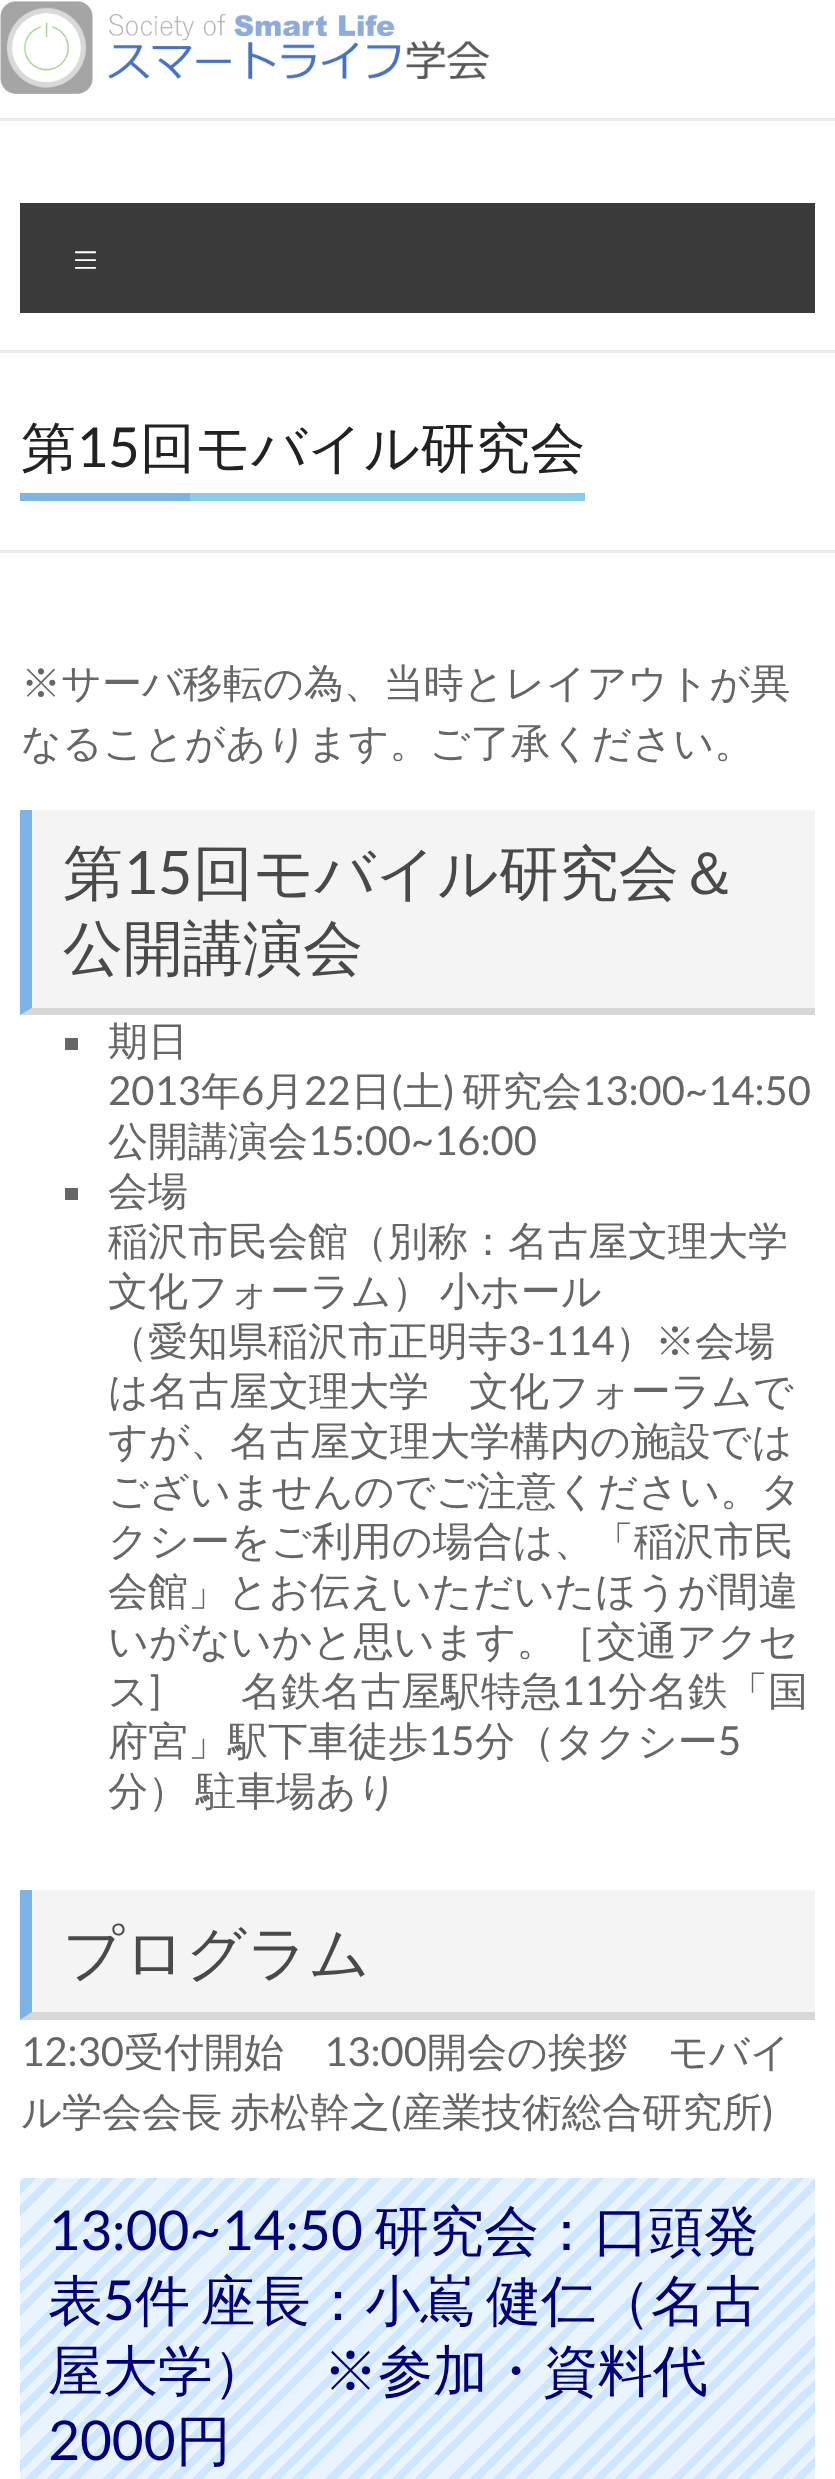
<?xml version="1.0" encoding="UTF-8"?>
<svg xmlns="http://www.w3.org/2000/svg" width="835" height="2479">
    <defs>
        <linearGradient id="g1" gradientUnits="userSpaceOnUse" x1="694" y1="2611" x2="138" y2="2054"><stop offset="0" stop-color="#CCE7FF"/><stop offset="0.01" stop-color="#CCE7FF"/><stop offset="0.01" stop-color="#E9F4FF"/><stop offset="0.02" stop-color="#E9F4FF"/><stop offset="0.02" stop-color="#CCE7FF"/><stop offset="0.03" stop-color="#CCE7FF"/><stop offset="0.03" stop-color="#E9F4FF"/><stop offset="0.04" stop-color="#E9F4FF"/><stop offset="0.04" stop-color="#CCE7FF"/><stop offset="0.05" stop-color="#CCE7FF"/><stop offset="0.05" stop-color="#E9F4FF"/><stop offset="0.07" stop-color="#E9F4FF"/><stop offset="0.07" stop-color="#CCE7FF"/><stop offset="0.08" stop-color="#CCE7FF"/><stop offset="0.08" stop-color="#E9F4FF"/><stop offset="0.09" stop-color="#E9F4FF"/><stop offset="0.09" stop-color="#CCE7FF"/><stop offset="0.1" stop-color="#CCE7FF"/><stop offset="0.1" stop-color="#E9F4FF"/><stop offset="0.11" stop-color="#E9F4FF"/><stop offset="0.11" stop-color="#CCE7FF"/><stop offset="0.12" stop-color="#CCE7FF"/><stop offset="0.12" stop-color="#E9F4FF"/><stop offset="0.13" stop-color="#E9F4FF"/><stop offset="0.13" stop-color="#CCE7FF"/><stop offset="0.14" stop-color="#CCE7FF"/><stop offset="0.14" stop-color="#E9F4FF"/><stop offset="0.16" stop-color="#E9F4FF"/><stop offset="0.16" stop-color="#CCE7FF"/><stop offset="0.17" stop-color="#CCE7FF"/><stop offset="0.17" stop-color="#E9F4FF"/><stop offset="0.18" stop-color="#E9F4FF"/><stop offset="0.18" stop-color="#CCE7FF"/><stop offset="0.19" stop-color="#CCE7FF"/><stop offset="0.19" stop-color="#E9F4FF"/><stop offset="0.2" stop-color="#E9F4FF"/><stop offset="0.2" stop-color="#CCE7FF"/><stop offset="0.21" stop-color="#CCE7FF"/><stop offset="0.21" stop-color="#E9F4FF"/><stop offset="0.22" stop-color="#E9F4FF"/><stop offset="0.22" stop-color="#CCE7FF"/><stop offset="0.23" stop-color="#CCE7FF"/><stop offset="0.23" stop-color="#E9F4FF"/><stop offset="0.24" stop-color="#E9F4FF"/><stop offset="0.24" stop-color="#CCE7FF"/><stop offset="0.25" stop-color="#CCE7FF"/><stop offset="0.25" stop-color="#E9F4FF"/><stop offset="0.27" stop-color="#E9F4FF"/><stop offset="0.27" stop-color="#CCE7FF"/><stop offset="0.28" stop-color="#CCE7FF"/><stop offset="0.28" stop-color="#E9F4FF"/><stop offset="0.29" stop-color="#E9F4FF"/><stop offset="0.29" stop-color="#CCE7FF"/><stop offset="0.3" stop-color="#CCE7FF"/><stop offset="0.3" stop-color="#E9F4FF"/><stop offset="0.31" stop-color="#E9F4FF"/><stop offset="0.31" stop-color="#CCE7FF"/><stop offset="0.32" stop-color="#CCE7FF"/><stop offset="0.32" stop-color="#E9F4FF"/><stop offset="0.33" stop-color="#E9F4FF"/><stop offset="0.33" stop-color="#CCE7FF"/><stop offset="0.34" stop-color="#CCE7FF"/><stop offset="0.34" stop-color="#E9F4FF"/><stop offset="0.36" stop-color="#E9F4FF"/><stop offset="0.36" stop-color="#CCE7FF"/><stop offset="0.37" stop-color="#CCE7FF"/><stop offset="0.37" stop-color="#E9F4FF"/><stop offset="0.38" stop-color="#E9F4FF"/><stop offset="0.38" stop-color="#CCE7FF"/><stop offset="0.39" stop-color="#CCE7FF"/><stop offset="0.39" stop-color="#E9F4FF"/><stop offset="0.4" stop-color="#E9F4FF"/><stop offset="0.4" stop-color="#CCE7FF"/><stop offset="0.41" stop-color="#CCE7FF"/><stop offset="0.41" stop-color="#E9F4FF"/><stop offset="0.42" stop-color="#E9F4FF"/><stop offset="0.42" stop-color="#CCE7FF"/><stop offset="0.43" stop-color="#CCE7FF"/><stop offset="0.43" stop-color="#E9F4FF"/><stop offset="0.44" stop-color="#E9F4FF"/><stop offset="0.44" stop-color="#CCE7FF"/><stop offset="0.45" stop-color="#CCE7FF"/><stop offset="0.45" stop-color="#E9F4FF"/><stop offset="0.47" stop-color="#E9F4FF"/><stop offset="0.47" stop-color="#CCE7FF"/><stop offset="0.48" stop-color="#CCE7FF"/><stop offset="0.48" stop-color="#E9F4FF"/><stop offset="0.49" stop-color="#E9F4FF"/><stop offset="0.49" stop-color="#CCE7FF"/><stop offset="0.5" stop-color="#CCE7FF"/><stop offset="0.5" stop-color="#E9F4FF"/><stop offset="0.51" stop-color="#E9F4FF"/><stop offset="0.51" stop-color="#CCE7FF"/><stop offset="0.52" stop-color="#CCE7FF"/><stop offset="0.52" stop-color="#E9F4FF"/><stop offset="0.53" stop-color="#E9F4FF"/><stop offset="0.53" stop-color="#CCE7FF"/><stop offset="0.54" stop-color="#CCE7FF"/><stop offset="0.54" stop-color="#E9F4FF"/><stop offset="0.56" stop-color="#E9F4FF"/><stop offset="0.56" stop-color="#CCE7FF"/><stop offset="0.57" stop-color="#CCE7FF"/><stop offset="0.57" stop-color="#E9F4FF"/><stop offset="0.58" stop-color="#E9F4FF"/><stop offset="0.58" stop-color="#CCE7FF"/><stop offset="0.59" stop-color="#CCE7FF"/><stop offset="0.59" stop-color="#E9F4FF"/><stop offset="0.6" stop-color="#E9F4FF"/><stop offset="0.6" stop-color="#CCE7FF"/><stop offset="0.61" stop-color="#CCE7FF"/><stop offset="0.61" stop-color="#E9F4FF"/><stop offset="0.62" stop-color="#E9F4FF"/><stop offset="0.62" stop-color="#CCE7FF"/><stop offset="0.63" stop-color="#CCE7FF"/><stop offset="0.63" stop-color="#E9F4FF"/><stop offset="0.64" stop-color="#E9F4FF"/><stop offset="0.64" stop-color="#CCE7FF"/><stop offset="0.65" stop-color="#CCE7FF"/><stop offset="0.65" stop-color="#E9F4FF"/><stop offset="0.67" stop-color="#E9F4FF"/><stop offset="0.67" stop-color="#CCE7FF"/><stop offset="0.68" stop-color="#CCE7FF"/><stop offset="0.68" stop-color="#E9F4FF"/><stop offset="0.69" stop-color="#E9F4FF"/><stop offset="0.69" stop-color="#CCE7FF"/><stop offset="0.7" stop-color="#CCE7FF"/><stop offset="0.7" stop-color="#E9F4FF"/><stop offset="0.71" stop-color="#E9F4FF"/><stop offset="0.71" stop-color="#CCE7FF"/><stop offset="0.72" stop-color="#CCE7FF"/><stop offset="0.72" stop-color="#E9F4FF"/><stop offset="0.73" stop-color="#E9F4FF"/><stop offset="0.73" stop-color="#CCE7FF"/><stop offset="0.74" stop-color="#CCE7FF"/><stop offset="0.74" stop-color="#E9F4FF"/><stop offset="0.76" stop-color="#E9F4FF"/><stop offset="0.76" stop-color="#CCE7FF"/><stop offset="0.77" stop-color="#CCE7FF"/><stop offset="0.77" stop-color="#E9F4FF"/><stop offset="0.78" stop-color="#E9F4FF"/><stop offset="0.78" stop-color="#CCE7FF"/><stop offset="0.79" stop-color="#CCE7FF"/><stop offset="0.79" stop-color="#E9F4FF"/><stop offset="0.8" stop-color="#E9F4FF"/><stop offset="0.8" stop-color="#CCE7FF"/><stop offset="0.81" stop-color="#CCE7FF"/><stop offset="0.81" stop-color="#E9F4FF"/><stop offset="0.82" stop-color="#E9F4FF"/><stop offset="0.82" stop-color="#CCE7FF"/><stop offset="0.83" stop-color="#CCE7FF"/><stop offset="0.83" stop-color="#E9F4FF"/><stop offset="0.84" stop-color="#E9F4FF"/><stop offset="0.84" stop-color="#CCE7FF"/><stop offset="0.85" stop-color="#CCE7FF"/><stop offset="0.85" stop-color="#E9F4FF"/><stop offset="0.87" stop-color="#E9F4FF"/><stop offset="0.87" stop-color="#CCE7FF"/><stop offset="0.88" stop-color="#CCE7FF"/><stop offset="0.88" stop-color="#E9F4FF"/><stop offset="0.89" stop-color="#E9F4FF"/><stop offset="0.89" stop-color="#CCE7FF"/><stop offset="0.9" stop-color="#CCE7FF"/><stop offset="0.9" stop-color="#E9F4FF"/><stop offset="0.91" stop-color="#E9F4FF"/><stop offset="0.91" stop-color="#CCE7FF"/><stop offset="0.92" stop-color="#CCE7FF"/><stop offset="0.92" stop-color="#E9F4FF"/><stop offset="0.93" stop-color="#E9F4FF"/><stop offset="0.93" stop-color="#CCE7FF"/><stop offset="0.94" stop-color="#CCE7FF"/><stop offset="0.94" stop-color="#E9F4FF"/><stop offset="0.96" stop-color="#E9F4FF"/><stop offset="0.96" stop-color="#CCE7FF"/><stop offset="0.97" stop-color="#CCE7FF"/><stop offset="0.97" stop-color="#E9F4FF"/><stop offset="0.98" stop-color="#E9F4FF"/><stop offset="0.98" stop-color="#CCE7FF"/><stop offset="0.99" stop-color="#CCE7FF"/><stop offset="0.99" stop-color="#E9F4FF"/><stop offset="1" stop-color="#E9F4FF"/></linearGradient>
    </defs>
    <rect width="100%" height="100%" fill="#FFFFFF"/>
    <image x="0" y="1" width="490" height="93" href="img_01.png"/>
    <rect x="0" y="118" width="835" height="3" fill="#EAEAEA"/>
    <rect x="0" y="350" width="835" height="3" fill="#EAEAEA"/>
    <rect x="20" y="203" width="795" height="110" fill="#3A3A3A"/>
    <text x="71" y="277" font-family="Lato" font-size="50" font-weight="300" fill="#FFFFFF">≡</text>
    <rect x="0" y="550" width="835" height="3" fill="#EAEAEA"/>
    <rect x="190" y="493" width="395" height="8" fill="#87CEEB"/>
    <text x="21" y="467" font-family="WenQuanYi Zen Hei" font-size="55" font-weight="500" fill="#222222">第</text>
    <text x="76" y="467" font-family="Lato" font-size="55" fill="#222222">15</text>
    <text x="140" y="467" font-family="WenQuanYi Zen Hei" font-size="55" font-weight="500" fill="#222222">回モバイル研究会</text>
    <rect x="20" y="493" width="170" height="8" fill="#7DB4E6"/>
    <text font-family="WenQuanYi Zen Hei" font-size="40" font-weight="500" fill="#666666">
        <tspan x="21" y="697">※サーバ移転の為、当時とレイアウトが異</tspan>
        <tspan x="21" y="757">なることがあります。ご了承ください。</tspan>
    </text>
    <rect x="20" y="810" width="795" height="205" fill="#F4F4F4"/>
    <path d="M 815 1015 H 20 L 32 1008 H 815 Z" fill="#D7D7D7"/>
    <path d="M 20 1015 V 810 H 32 V 1008 Z" fill="#7DB4E6"/>
    <text x="63" y="894" font-family="WenQuanYi Zen Hei" font-size="60" font-weight="500" fill="#494949">第</text>
    <text x="123" y="894" font-family="Lato" font-size="60" fill="#494949">15</text>
    <text x="193" y="894" font-family="WenQuanYi Zen Hei" font-size="60" font-weight="500" fill="#494949">回モバイル研究会＆</text>
    <text x="63" y="969" font-family="WenQuanYi Zen Hei" font-size="60" font-weight="500" fill="#494949">公開講演会</text>
    <rect x="65" y="1038" width="13" height="12" fill="#666666"/>
    <text x="108" y="1055" font-family="WenQuanYi Zen Hei" font-size="40" font-weight="500" fill="#666666">期日</text>
    <text x="201" y="1105" font-family="WenQuanYi Zen Hei" font-size="40" font-weight="500" fill="#666666">年</text>
    <text x="264" y="1105" font-family="WenQuanYi Zen Hei" font-size="40" font-weight="500" fill="#666666">月</text>
    <text x="351" y="1105" font-family="WenQuanYi Zen Hei" font-size="40" font-weight="500" fill="#666666">日 土</text>
    <text x="462" y="1105" font-family="WenQuanYi Zen Hei" font-size="40" font-weight="500" fill="#666666">研究会</text>
    <text x="108" y="1105" font-family="Lato" font-size="40" fill="#666666">2013</text>
    <text x="241" y="1105" font-family="Lato" font-size="40" fill="#666666">6</text>
    <text x="304" y="1105" font-family="Lato" font-size="40" fill="#666666">22</text>
    <text x="391" y="1105" font-family="Lato" font-size="40" fill="#666666">(</text>
    <text x="443" y="1105" font-family="Lato" font-size="40" fill="#666666">)</text>
    <text x="582" y="1105" font-family="Lato" font-size="40" fill="#666666">13:00~14:50</text>
    <text x="108" y="1155" font-family="WenQuanYi Zen Hei" font-size="40" font-weight="500" fill="#666666">公開講演会</text>
    <text x="308" y="1155" font-family="Lato" font-size="40" fill="#666666">15:00~16:00</text>
    <rect x="65" y="1188" width="13" height="12" fill="#666666"/>
    <text font-family="WenQuanYi Zen Hei" font-size="40" font-weight="500" fill="#666666">
        <tspan x="108" y="1205">会場</tspan>
        <tspan x="108" y="1255">稲沢市民会館（別称：名古屋文理大学</tspan>
        <tspan x="108" y="1305" word-spacing="-4">文化フォーラム） 小ホール</tspan>
        <tspan x="108" y="1355">（愛知県稲沢市正明寺</tspan>
    </text>
    <text x="508" y="1355" font-family="Lato" font-size="40" fill="#666666">3-114</text>
    <text x="615" y="1355" font-family="WenQuanYi Zen Hei" font-size="40" font-weight="500" fill="#666666">）※会場</text>
    <text font-family="WenQuanYi Zen Hei" font-size="40" font-weight="500" fill="#666666">
        <tspan x="108" y="1405">は名古屋文理大学　文化フォーラムで</tspan>
        <tspan x="108" y="1455">すが、名古屋文理大学構内の施設では</tspan>
        <tspan x="108" y="1505">ございませんのでご注意ください。タ</tspan>
        <tspan x="108" y="1555">クシーをご利用の場合は、「稲沢市民</tspan>
        <tspan x="108" y="1605">会館」とお伝えいただいたほうが間違</tspan>
        <tspan x="108" y="1655">いがないかと思います。［交通アクセ</tspan>
        <tspan x="108" y="1705">ス</tspan>
    </text>
    <text x="149" y="1705" font-family="Lato" font-size="40" fill="#666666">]</text>
    <text x="241" y="1705" font-family="WenQuanYi Zen Hei" font-size="40" font-weight="500" fill="#666666">名鉄名古屋駅特急</text>
    <text x="561" y="1705" font-family="Lato" font-size="40" fill="#666666">11</text>
    <text x="608" y="1705" font-family="WenQuanYi Zen Hei" font-size="40" font-weight="500" fill="#666666">分名鉄「国</text>
    <text x="108" y="1755" font-family="WenQuanYi Zen Hei" font-size="40" font-weight="500" fill="#666666">府宮」駅下車徒歩</text>
    <text x="428" y="1755" font-family="Lato" font-size="40" fill="#666666">15</text>
    <text x="475" y="1755" font-family="WenQuanYi Zen Hei" font-size="40" font-weight="500" fill="#666666">分（タクシー</text>
    <text x="718" y="1755" font-family="Lato" font-size="40" fill="#666666">5</text>
    <text x="108" y="1805" word-spacing="-4" font-family="WenQuanYi Zen Hei" font-size="40" font-weight="500" fill="#666666">分） 駐車場あり</text>
    <rect x="20" y="1890" width="795" height="130" fill="#F4F4F4"/>
    <path d="M 815 2020 H 20 L 32 2012 H 815 Z" fill="#D7D7D7"/>
    <path d="M 20 2020 V 1890 H 32 V 2012 Z" fill="#7DB4E6"/>
    <text x="63" y="1974" font-family="WenQuanYi Zen Hei" font-size="60" font-weight="500" fill="#494949">プログラム</text>
    <text x="21" y="2066" font-family="Lato" font-size="40" fill="#666666">12:30</text>
    <text x="124" y="2066" font-family="WenQuanYi Zen Hei" font-size="40" font-weight="500" fill="#666666">受付開始</text>
    <text x="324" y="2066" font-family="Lato" font-size="40" fill="#666666">13:00</text>
    <text x="427" y="2066" font-family="WenQuanYi Zen Hei" font-size="40" font-weight="500" fill="#666666">開会の挨拶　モバイ</text>
    <text x="21" y="2126" word-spacing="-4" font-family="WenQuanYi Zen Hei" font-size="40" font-weight="500" fill="#666666">ル学会会長 赤松幹之</text>
    <text x="390" y="2126" font-family="Lato" font-size="40" fill="#666666">(</text>
    <text x="402" y="2126" font-family="WenQuanYi Zen Hei" font-size="40" font-weight="500" fill="#666666">産業技術総合研究所</text>
    <text x="762" y="2126" font-family="Lato" font-size="40" fill="#666666">)</text>
    <rect x="20" y="2178" width="795" height="301" fill="url(#g1)"/>
    <text x="48" y="2250" font-family="Lato" font-size="55" fill="#010079">13:00~14:50</text>
    <text x="374" y="2250" font-family="WenQuanYi Zen Hei" font-size="55" font-weight="500" fill="#010079">研究会：口頭発</text>
    <text x="48" y="2320" font-family="WenQuanYi Zen Hei" font-size="55" font-weight="500" fill="#010079">表</text>
    <text x="103" y="2320" font-family="Lato" font-size="55" fill="#010079">5</text>
    <text x="135" y="2320" word-spacing="-6" font-family="WenQuanYi Zen Hei" font-size="55" font-weight="500" fill="#010079">件 座長：小嶌 健仁（名古</text>
    <text x="48" y="2390" font-family="WenQuanYi Zen Hei" font-size="55" font-weight="500" fill="#010079">屋大学）　※参加・資料代</text>
    <text x="48" y="2460" font-family="Lato" font-size="55" fill="#010079">2000</text>
    <text x="176" y="2460" font-family="WenQuanYi Zen Hei" font-size="55" font-weight="500" fill="#010079">円</text>
</svg>
